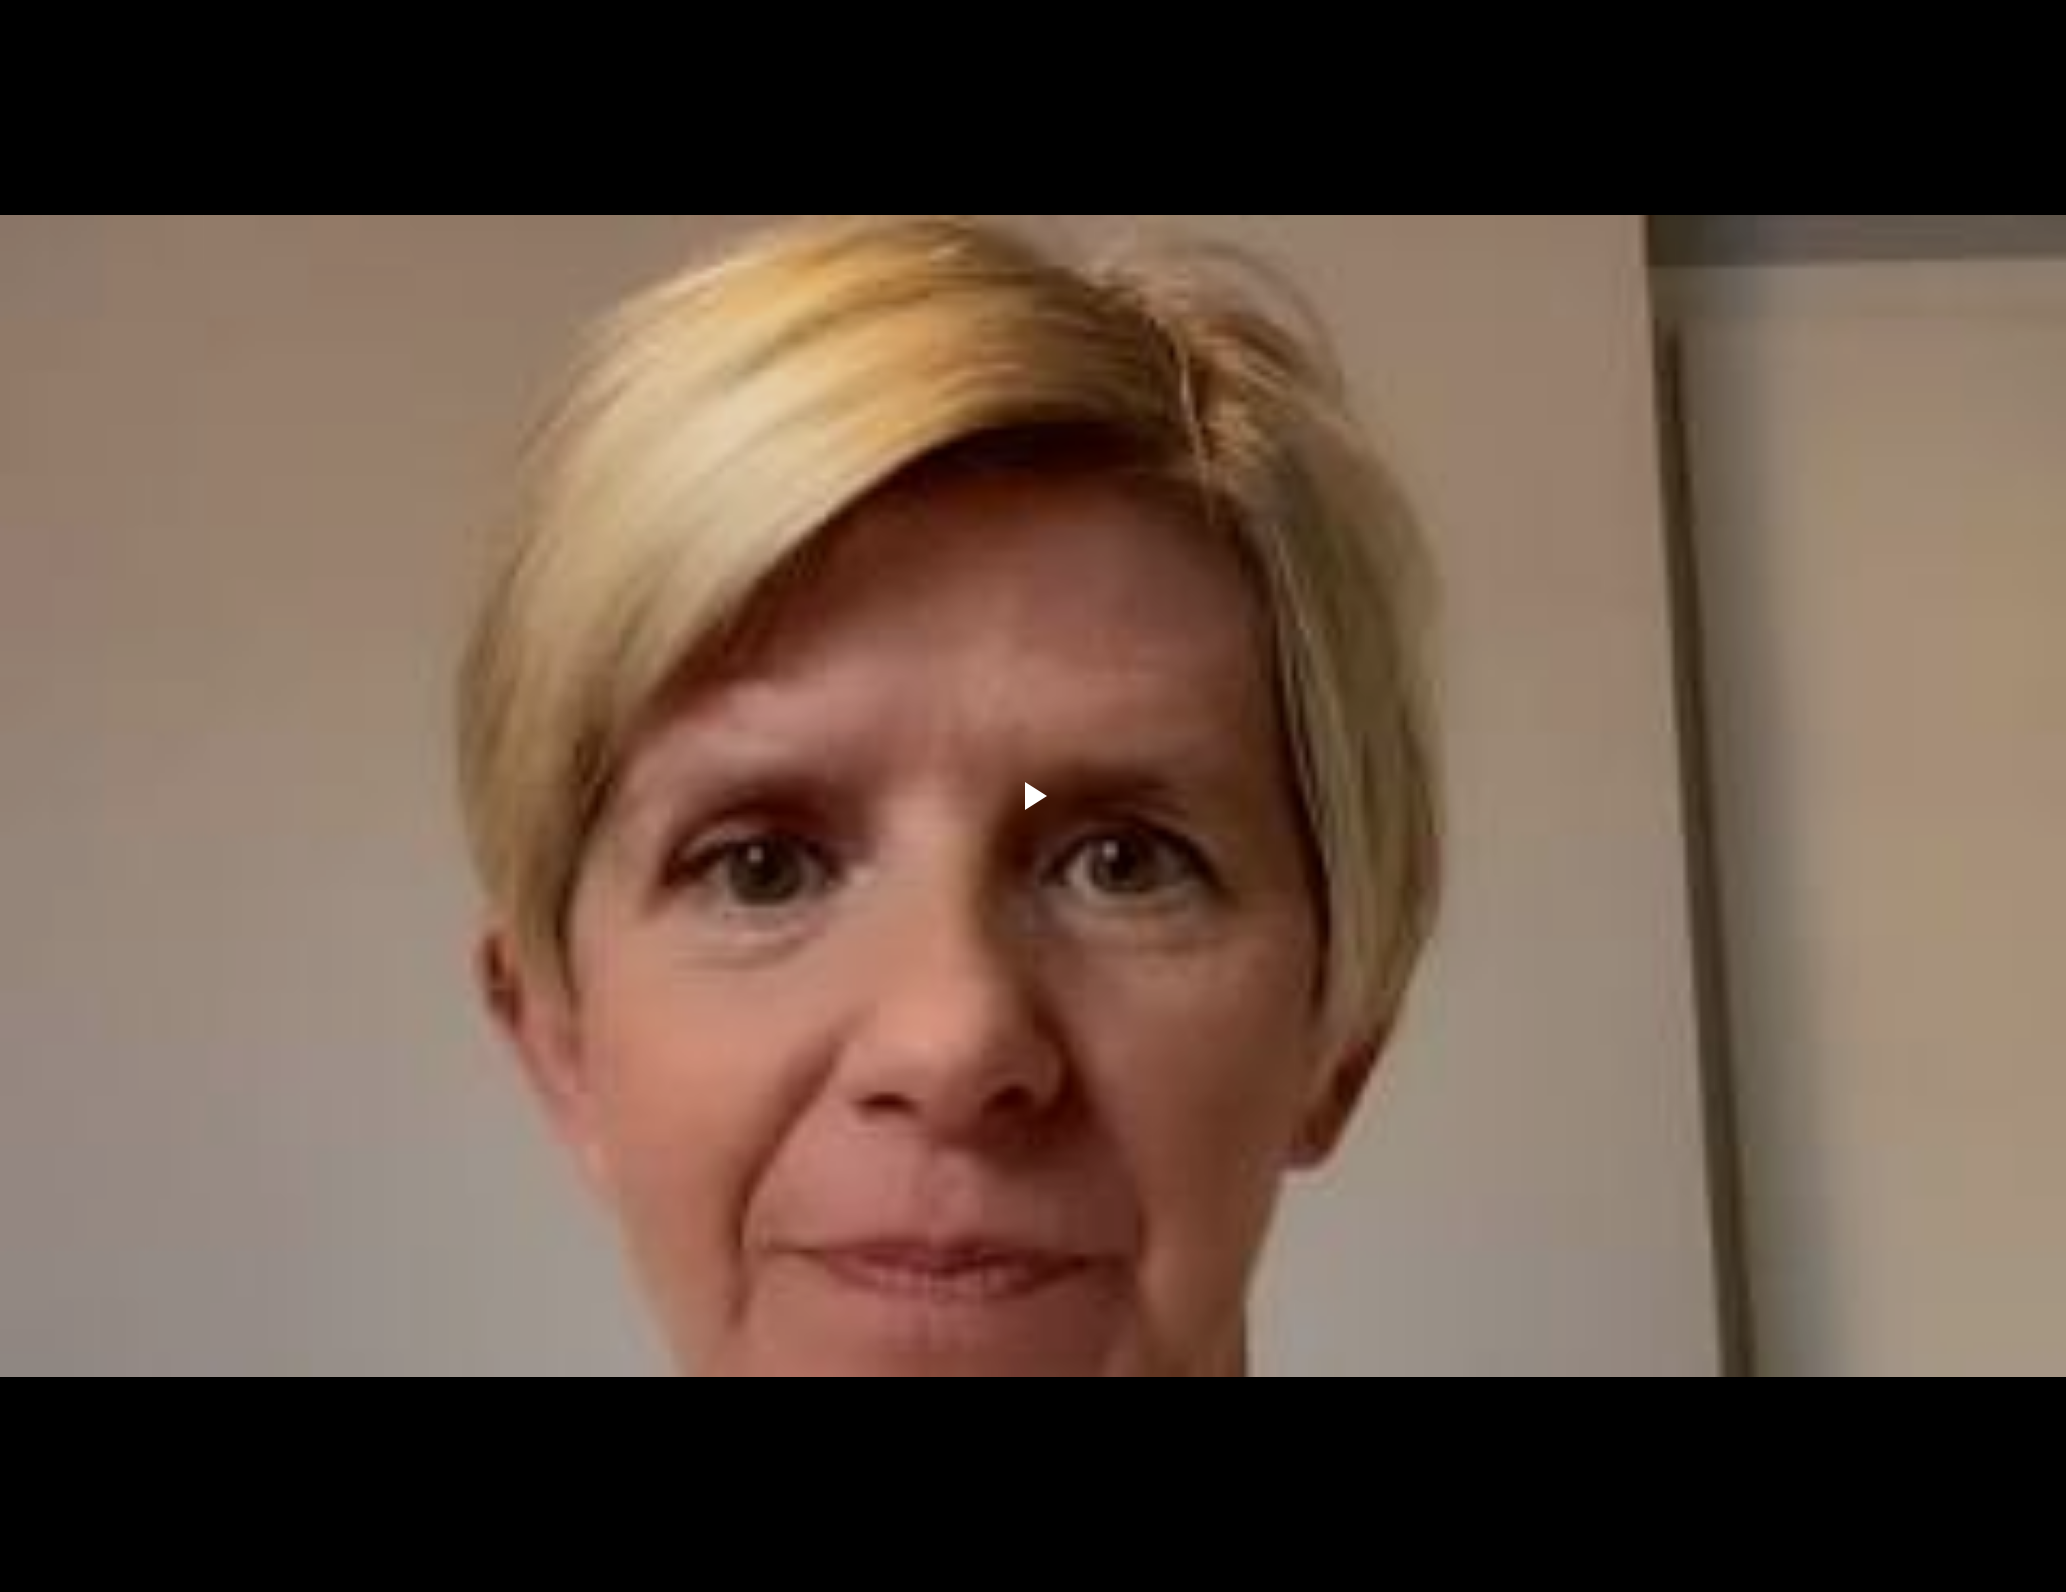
<?xml version="1.0" encoding="UTF-8"?>
<svg xmlns="http://www.w3.org/2000/svg" width="2066" height="1592">
    <rect width="100%" height="100%" fill="#000000"/>
    <image x="0" y="215" width="2066" height="1162" href="img_01.png"/>
    <image x="1025" y="782" width="22" height="28" href="img_02.png"/>
</svg>
